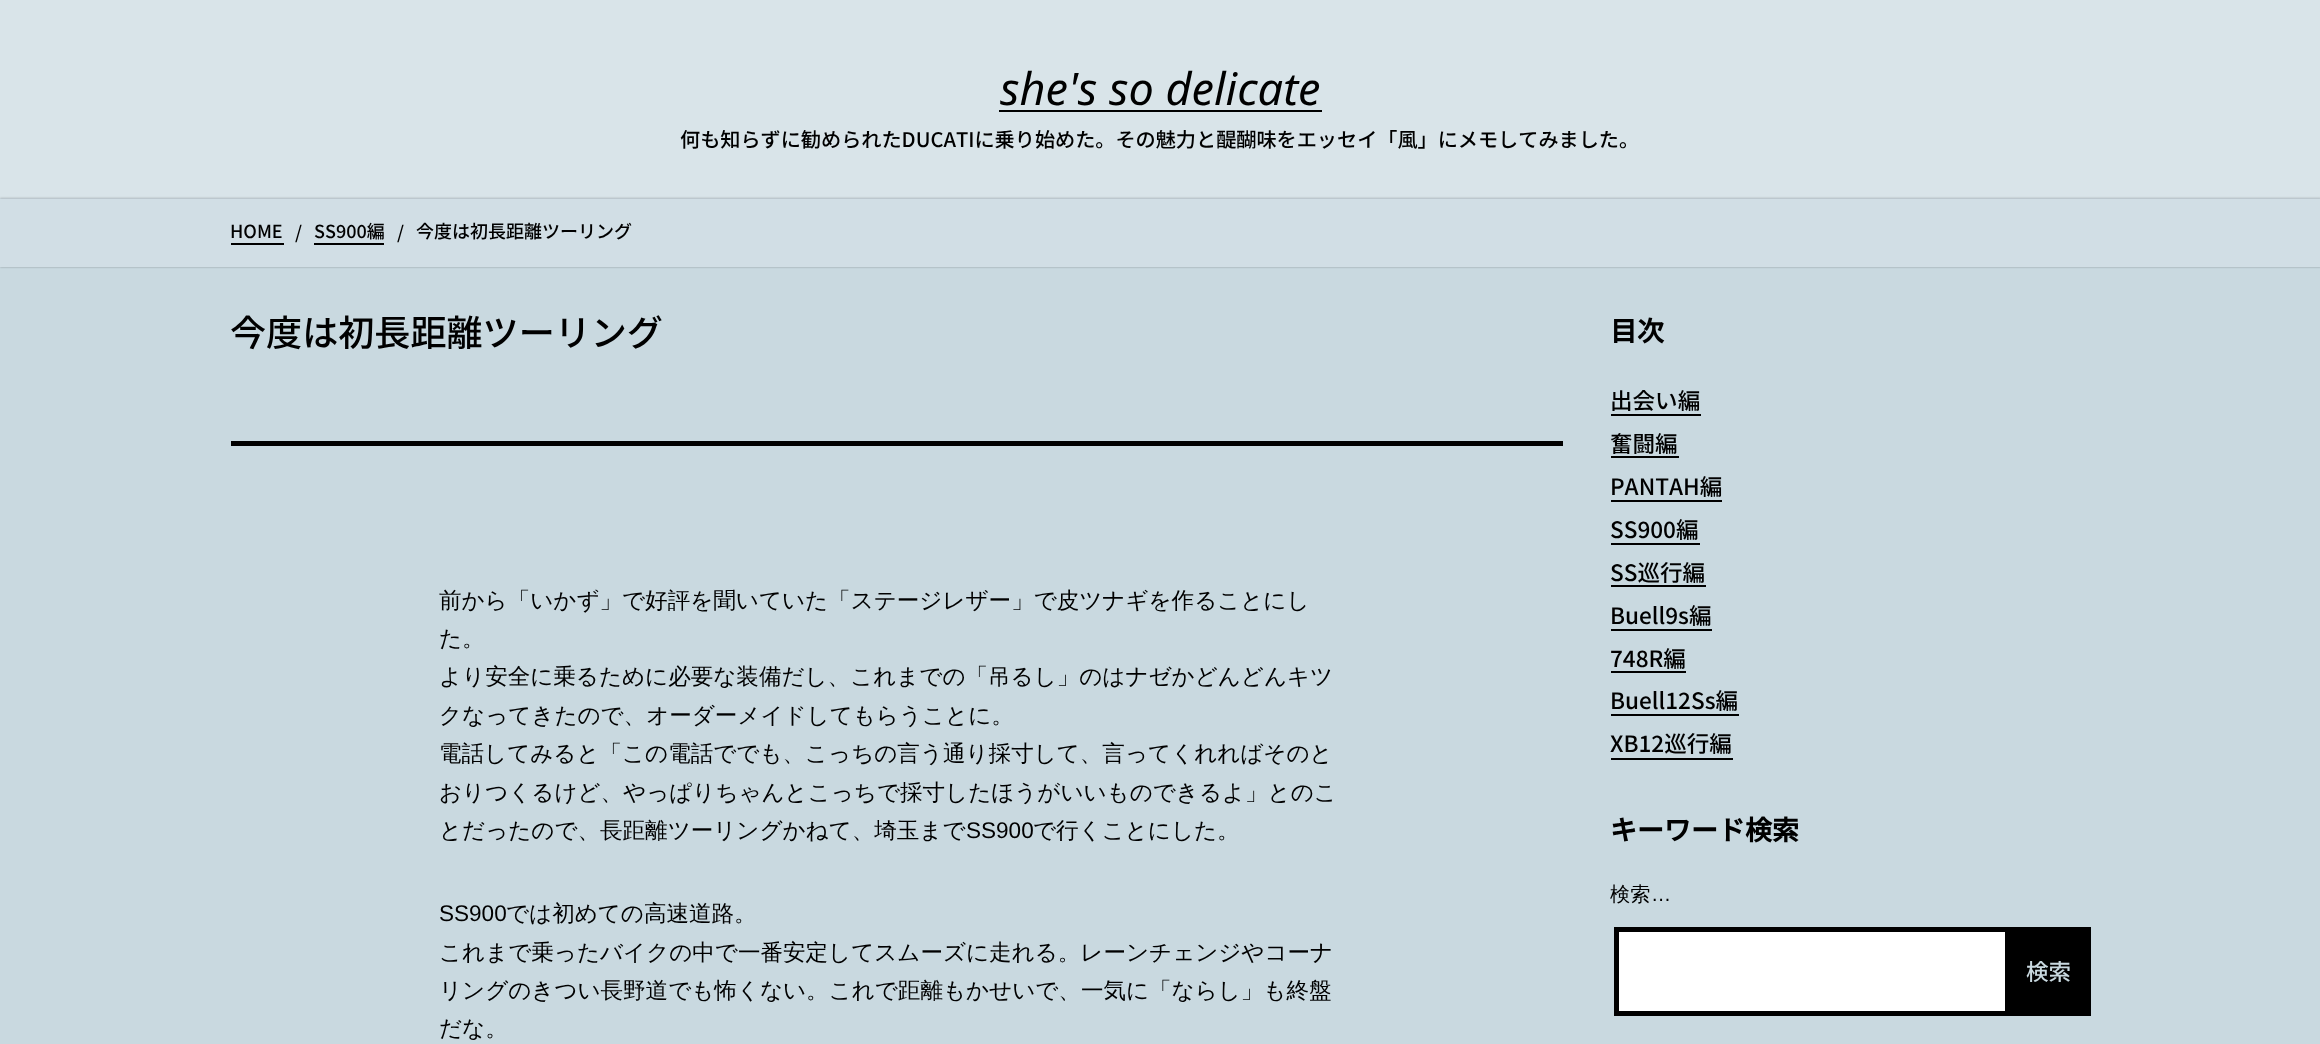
<?xml version="1.0" encoding="UTF-8"?>
<svg xmlns="http://www.w3.org/2000/svg" width="2320" height="1044">
    <style>*{font-kerning:none!important;font-variant-ligatures:none!important}</style>
    <defs>
        <filter id="blur1" x="-50%" y="-200%" width="200%" height="500%"><feGaussianBlur stdDeviation="1"/></filter>
        <clipPath id="clip1"><rect x="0" y="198" width="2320" height="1"/></clipPath>
    </defs>
    <rect width="100%" height="100%" fill="#C9D9E0"/>
    <rect x="0" y="198" width="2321" height="69" fill="#000000" fill-opacity="0.3" filter="url(#blur1)"/>
    <rect x="0" y="198" width="2320" height="69" fill="#D1DEE5"/>
    <g clip-path="url(#clip1)">
        <rect x="0" y="0" width="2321" height="198" fill="#000000" fill-opacity="0.3" filter="url(#blur1)"/>
    </g>
    <rect x="0" y="0" width="2320" height="198" fill="#FFFFFF" fill-opacity="0.3"/>
    <text x="1000" y="105" font-family="Noto Sans" font-size="45" font-style="italic" fill="#000000">she's so delicate</text>
    <rect x="999" y="110" width="323" height="2" fill="#000000"/>
    <text x="680" y="147" font-family="Noto Sans JP" font-size="20.15" font-weight="100" fill="#000000">何も知らずに勧められたDUCATIに乗り始めた。その魅力と醍醐味をエッセイ「風」にメモしてみました。</text>
    <text x="230" y="238" font-family="Noto Sans JP" font-size="18" font-weight="100" fill="#000000">HOME</text>
    <rect x="231" y="243" width="53" height="2" fill="#000000"/>
    <text x="295" y="239" font-family="Noto Sans JP" font-size="18" font-weight="100" fill="#000000">/</text>
    <text x="314" y="238" font-family="Noto Sans JP" font-size="18" font-weight="100" fill="#000000">SS900編</text>
    <rect x="314" y="243" width="70" height="2" fill="#000000"/>
    <text x="397" y="239" font-family="Noto Sans JP" font-size="18" font-weight="100" fill="#000000">/</text>
    <text x="416" y="238" font-family="Noto Sans JP" font-size="18" font-weight="100" fill="#000000">今度は初長距離ツーリング</text>
    <rect x="231" y="441" width="1332" height="5" fill="#000000"/>
    <text x="230" y="346" font-family="Noto Sans JP" font-size="36.1" font-weight="100" fill="#000000">今度は初長距離ツーリング</text>
    <text font-family="WenQuanYi Zen Hei" font-size="22.55" font-weight="500" fill="#000000">
        <tspan x="439" y="608">前から「いかず」で好評を聞いていた「ステージレザー」で皮ツナギを作ることにし</tspan>
        <tspan x="439" y="646">た。</tspan>
        <tspan x="439" y="684">より安全に乗るために必要な装備だし、これまでの「吊るし」のはナゼかどんどんキツ</tspan>
        <tspan x="439" y="723">クなってきたので、オーダーメイドしてもらうことに。</tspan>
        <tspan x="439" y="761">電話してみると「この電話ででも、こっちの言う通り採寸して、言ってくれればそのと</tspan>
        <tspan x="439" y="800">おりつくるけど、やっぱりちゃんとこっちで採寸したほうがいいものできるよ」とのこ</tspan>
        <tspan x="439" y="838">とだったので、長距離ツーリングかねて、埼玉まで</tspan>
    </text>
    <text x="966" y="838" font-family="Liberation Sans" font-size="22.55" fill="#000000">SS900</text>
    <text x="1033" y="838" font-family="WenQuanYi Zen Hei" font-size="22.55" font-weight="500" fill="#000000">で行くことにした。</text>
    <text x="439" y="921" font-family="Liberation Sans" font-size="22.55" fill="#000000">SS900</text>
    <text x="506" y="921" font-family="WenQuanYi Zen Hei" font-size="22.55" font-weight="500" fill="#000000">では初めての高速道路。</text>
    <text font-family="WenQuanYi Zen Hei" font-size="22.55" font-weight="500" fill="#000000">
        <tspan x="439" y="960">これまで乗ったバイクの中で一番安定してスムーズに走れる。レーンチェンジやコーナ</tspan>
        <tspan x="439" y="998">リングのきつい長野道でも怖くない。これで距離もかせいで、一気に「ならし」も終盤</tspan>
        <tspan x="439" y="1036">だな。</tspan>
    </text>
    <text x="1610" y="341" font-family="Noto Sans JP" font-size="27" font-weight="700" fill="#000000">目次</text>
    <text x="1610" y="409" font-family="Noto Sans JP" font-size="22.55" font-weight="100" fill="#000000">出会い編</text>
    <rect x="1611" y="414" width="90" height="2" fill="#000000"/>
    <text x="1610" y="452" font-family="Noto Sans JP" font-size="22.55" font-weight="100" fill="#000000">奮闘編</text>
    <rect x="1611" y="456" width="68" height="2" fill="#000000"/>
    <text x="1610" y="495" font-family="Noto Sans JP" font-size="22.55" font-weight="100" fill="#000000">PANTAH編</text>
    <rect x="1611" y="500" width="111" height="2" fill="#000000"/>
    <text x="1610" y="538" font-family="Noto Sans JP" font-size="22.55" font-weight="100" fill="#000000">SS900編</text>
    <rect x="1611" y="543" width="89" height="2" fill="#000000"/>
    <text x="1610" y="581" font-family="Noto Sans JP" font-size="22.55" font-weight="100" fill="#000000">SS巡行編</text>
    <rect x="1611" y="585" width="95" height="2" fill="#000000"/>
    <text x="1610" y="624" font-family="Noto Sans JP" font-size="22.55" font-weight="100" fill="#000000">Buell9s編</text>
    <rect x="1611" y="629" width="101" height="2" fill="#000000"/>
    <text x="1610" y="667" font-family="Noto Sans JP" font-size="22.55" font-weight="100" fill="#000000">748R編</text>
    <rect x="1611" y="671" width="75" height="2" fill="#000000"/>
    <text x="1610" y="709" font-family="Noto Sans JP" font-size="22.55" font-weight="100" fill="#000000">Buell12Ss編</text>
    <rect x="1611" y="714" width="128" height="2" fill="#000000"/>
    <text x="1610" y="752" font-family="Noto Sans JP" font-size="22.55" font-weight="100" fill="#000000">XB12巡行編</text>
    <rect x="1611" y="758" width="122" height="2" fill="#000000"/>
    <text x="1610" y="840" font-family="Noto Sans JP" font-size="27" font-weight="700" fill="#000000">キーワード検索</text>
    <text x="1610" y="901" font-family="WenQuanYi Zen Hei" font-size="20.15" font-weight="500" fill="#000000">検索</text>
    <text x="1651" y="901" font-family="Liberation Sans" font-size="20.15" fill="#000000">…</text>
    <rect x="1616.5" y="929.5" width="391" height="84" fill="#FFFFFF" stroke="#000000" stroke-width="5"/>
    <rect x="2010" y="927" width="81" height="89" fill="#000000"/>
    <text x="2026" y="980" font-family="Noto Sans JP" font-size="22.55" font-weight="100" fill="#C9D9E0">検索</text>
</svg>
